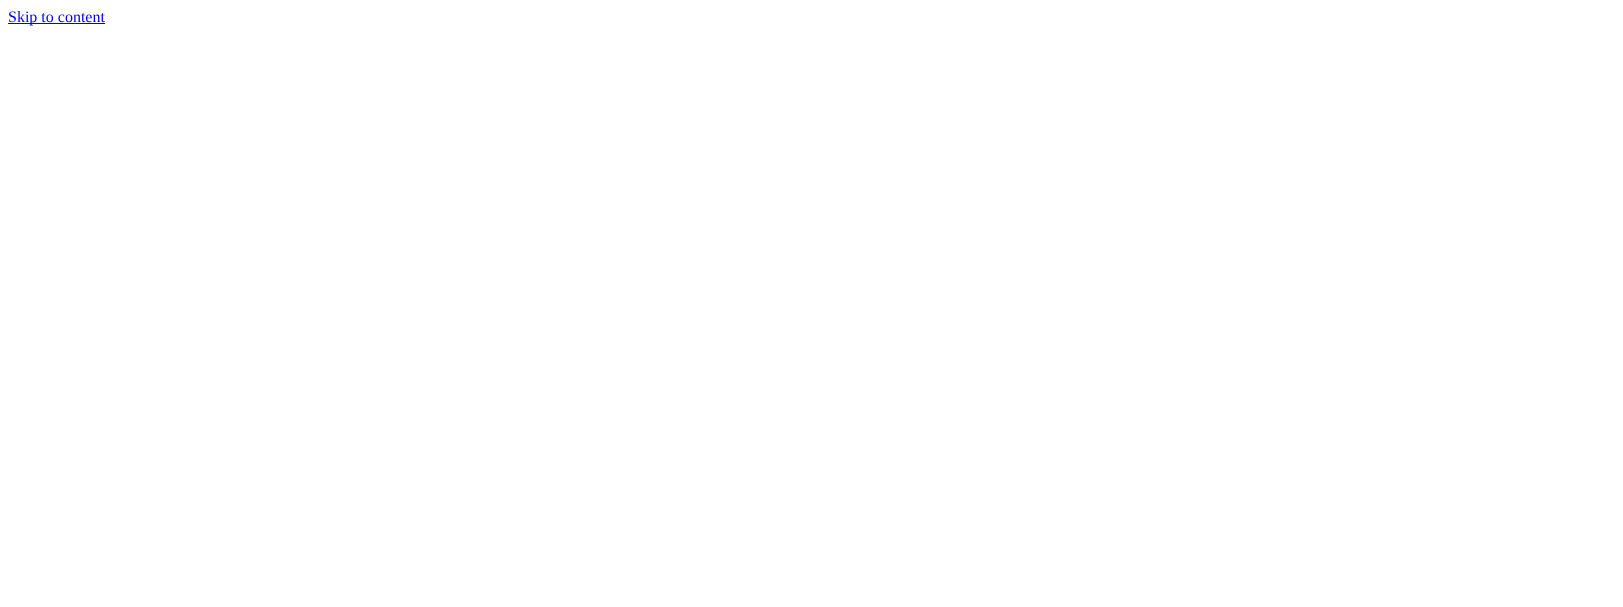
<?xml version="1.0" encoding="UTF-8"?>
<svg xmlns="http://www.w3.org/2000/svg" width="1623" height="607">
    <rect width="100%" height="100%" fill="#FFFFFF"/>
    <rect x="8" y="23" width="97" height="1" fill="#0000EE"/>
    <text x="8" y="22" font-family="Liberation Serif" font-size="16" fill="#0000EE">Skip to content</text>
</svg>
